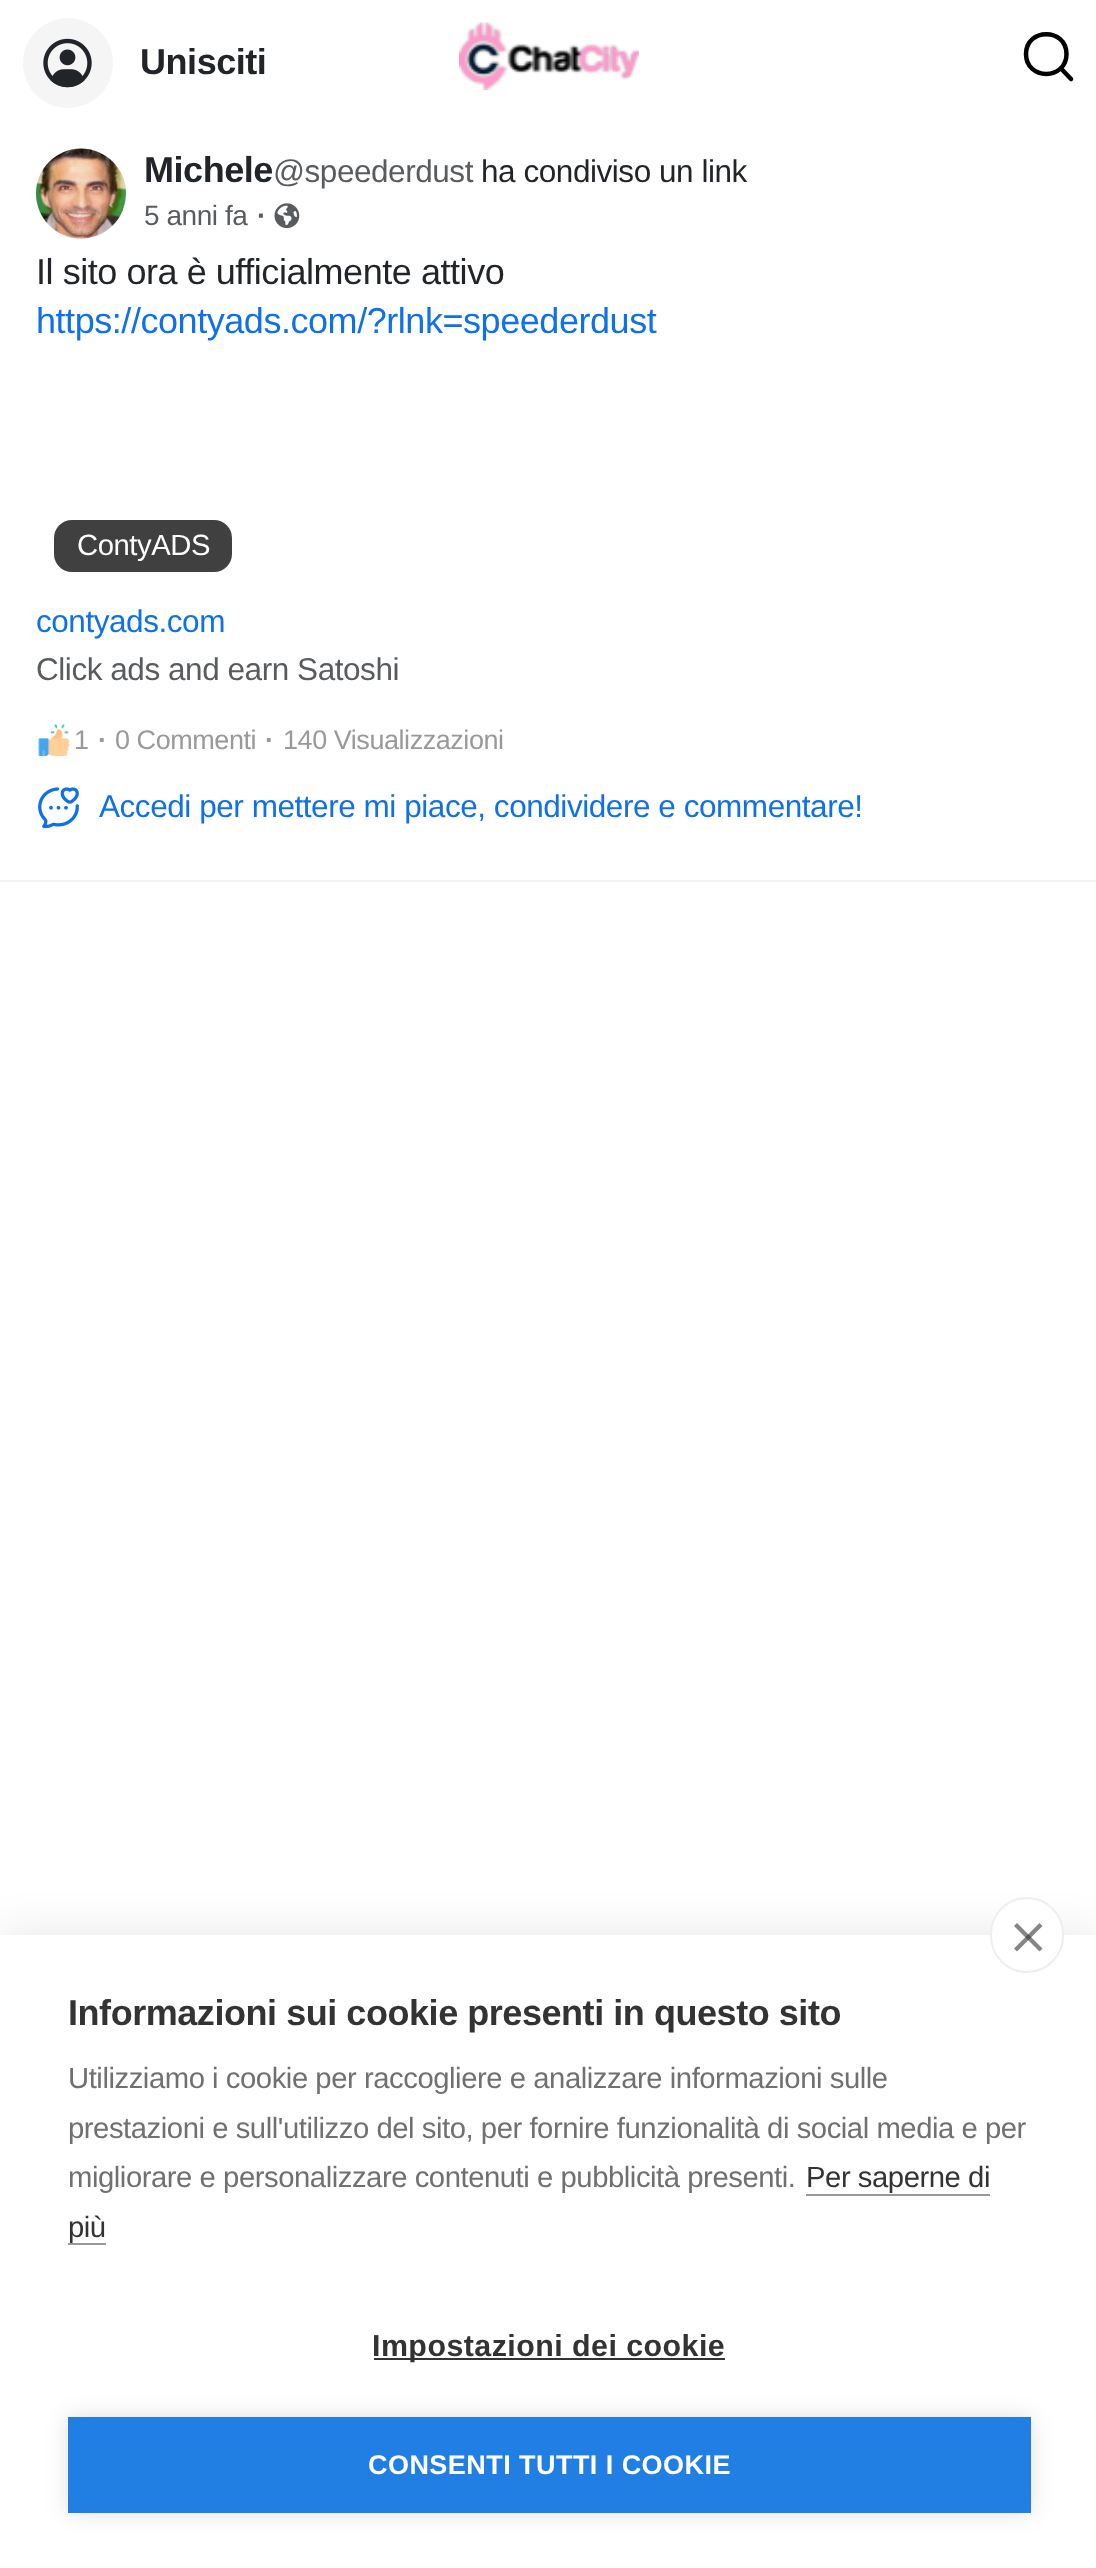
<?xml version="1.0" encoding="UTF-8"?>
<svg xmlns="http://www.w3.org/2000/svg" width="1096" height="2568">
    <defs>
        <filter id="blur1" x="-50%" y="-200%" width="200%" height="500%"><feGaussianBlur stdDeviation="22.5"/></filter>
        <filter id="blur2" x="-50%" y="-200%" width="200%" height="500%"><feGaussianBlur stdDeviation="11"/></filter>
    </defs>
    <rect width="100%" height="100%" fill="#FFFFFF"/>
    <circle cx="68" cy="63" r="45" fill="#F5F5F5"/>
    <image x="43" y="38" width="49" height="50" href="img_01.png"/>
    <text x="140" y="74" font-family="Liberation Sans" font-size="36" font-weight="700" letter-spacing="-0.45" fill="#212529">Unisciti</text>
    <image x="459" y="22" width="180" height="68" href="img_02.png"/>
    <rect x="0" y="880" width="1096" height="2" fill="#EFF3F4"/>
    <circle cx="81" cy="194" r="45" fill="#EEEEEE"/>
    <image x="36" y="148" width="90" height="91" href="img_03.png"/>
    <text x="144" y="182" font-family="Liberation Sans" font-size="36" font-weight="700" letter-spacing="-0.45" fill="#212529">Michele</text>
    <text x="273" y="182" font-family="Liberation Sans" font-size="31.5" letter-spacing="-0.45" fill="#595C5F">@speederdust</text>
    <text x="481" y="182" font-family="Liberation Sans" font-size="31.5" letter-spacing="-0.45" fill="#212529">ha condiviso un link</text>
    <text x="144" y="225" font-family="Liberation Sans" font-size="28" letter-spacing="-0.45" fill="#595C5F">5 anni fa</text>
    <text x="257" y="225" font-family="Liberation Sans" font-size="28" font-weight="700" letter-spacing="-0.45" fill="#595C5F">·</text>
    <image x="274" y="203" width="26" height="26" href="img_04.png"/>
    <text x="36" y="284" font-family="Liberation Sans" font-size="36" letter-spacing="-0.45" fill="#212529">Il sito ora è ufficialmente attivo</text>
    <text x="36" y="333" font-family="Liberation Sans" font-size="36" letter-spacing="-0.45" fill="#0E71EA">https://contyads.com/?rlnk=speederdust</text>
    <rect x="54" y="520" width="178" height="52" rx="18" fill="#404040"/>
    <text x="77" y="555" font-family="Liberation Sans" font-size="29.25" letter-spacing="-0.45" fill="#FFFFFF">ContyADS</text>
    <text x="36" y="632" font-family="Liberation Sans" font-size="31.5" letter-spacing="-0.45" fill="#0E71EA">contyads.com</text>
    <text x="36" y="680" font-family="Liberation Sans" font-size="31.5" letter-spacing="-0.45" fill="#595C5F">Click ads and earn Satoshi</text>
    <image x="38" y="724" width="32" height="32" href="img_05.png"/>
    <text x="74" y="749" font-family="Liberation Sans" font-size="27" letter-spacing="-0.45" fill="#999999">1</text>
    <text x="98" y="749" font-family="Liberation Sans" font-size="27" font-weight="700" letter-spacing="-0.45" fill="#999999">·</text>
    <text x="115" y="749" font-family="Liberation Sans" font-size="27" letter-spacing="-0.45" fill="#999999">0 Commenti</text>
    <text x="265" y="749" font-family="Liberation Sans" font-size="27" font-weight="700" letter-spacing="-0.45" fill="#999999">·</text>
    <text x="283" y="749" font-family="Liberation Sans" font-size="27" letter-spacing="-0.45" fill="#999999">140 Visualizzazioni</text>
    <image x="38" y="787" width="41" height="42" href="img_06.png"/>
    <text x="99" y="817" font-family="Liberation Sans" font-size="31.5" letter-spacing="-0.45" fill="#0E71EA">Accedi per mettere mi piace, condividere e commentare!</text>
    <path d="M 1061 68.5 L 1071 79" fill="none" stroke="#000000" stroke-width="4.5" stroke-linecap="round" stroke-linejoin="round"/>
    <path d="M 1066.5 54 C 1066.5 27.5 1026 27.5 1026 54 C 1026 80.5 1066.5 80.5 1066.5 54 Z" fill="none" stroke="#000000" stroke-width="4.5" stroke-linejoin="round"/>
    <rect x="0" y="1935" width="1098" height="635" fill="#000000" fill-opacity="0.1" filter="url(#blur1)"/>
    <rect x="0" y="1935" width="1096" height="633" fill="#FFFFFF"/>
    <rect x="991" y="1898" width="72" height="74" rx="36" fill="#FFFFFF" stroke="#EEEEEE" stroke-width="2"/>
    <path d="M 1014 1948.5 L 1039.5 1923 L 1042.5 1926 L 1017 1951.5 Z" fill="#858585"/>
    <path d="M 1017 1923 L 1042.5 1948.5 L 1039.5 1951.5 L 1014 1926 Z" fill="#333333" fill-opacity="0.6"/>
    <text x="68" y="2025" font-family="Liberation Sans" font-size="36" font-weight="700" letter-spacing="-0.45" fill="#333333">Informazioni sui cookie presenti in questo sito</text>
    <text font-family="Liberation Sans" font-size="29.25" letter-spacing="-0.45" fill="#707070">
        <tspan x="68" y="2088">Utilizziamo i cookie per raccogliere e analizzare informazioni sulle</tspan>
        <tspan x="68" y="2138">prestazioni e sull'utilizzo del sito, per fornire funzionalità di social media e per</tspan>
        <tspan x="68" y="2187">migliorare e personalizzare contenuti e pubblicità presenti.</tspan>
    </text>
    <text x="806" y="2187" font-family="Liberation Sans" font-size="29.25" letter-spacing="-0.45" fill="#333333">Per saperne di</text>
    <rect x="806" y="2194" width="184" height="2" fill="#999999"/>
    <rect x="68" y="2243" width="38" height="2" fill="#999999"/>
    <text x="68" y="2237" font-family="Liberation Sans" font-size="29.25" letter-spacing="-0.45" fill="#333333">più</text>
    <rect x="374" y="2358" width="351" height="2" fill="#333333"/>
    <text x="372" y="2356" font-family="Liberation Sans" font-size="30.4" font-weight="700" letter-spacing="0.45" fill="#333333">Impostazioni dei cookie</text>
    <rect x="68" y="2417" width="963" height="96" fill="#000000" fill-opacity="0.12" filter="url(#blur2)"/>
    <rect x="68" y="2417" width="963" height="96" fill="#217FE4"/>
    <text x="368" y="2474" font-family="Liberation Sans" font-size="27" font-weight="700" letter-spacing="0.45" fill="#FFFFFF">CONSENTI TUTTI I COOKIE</text>
</svg>
